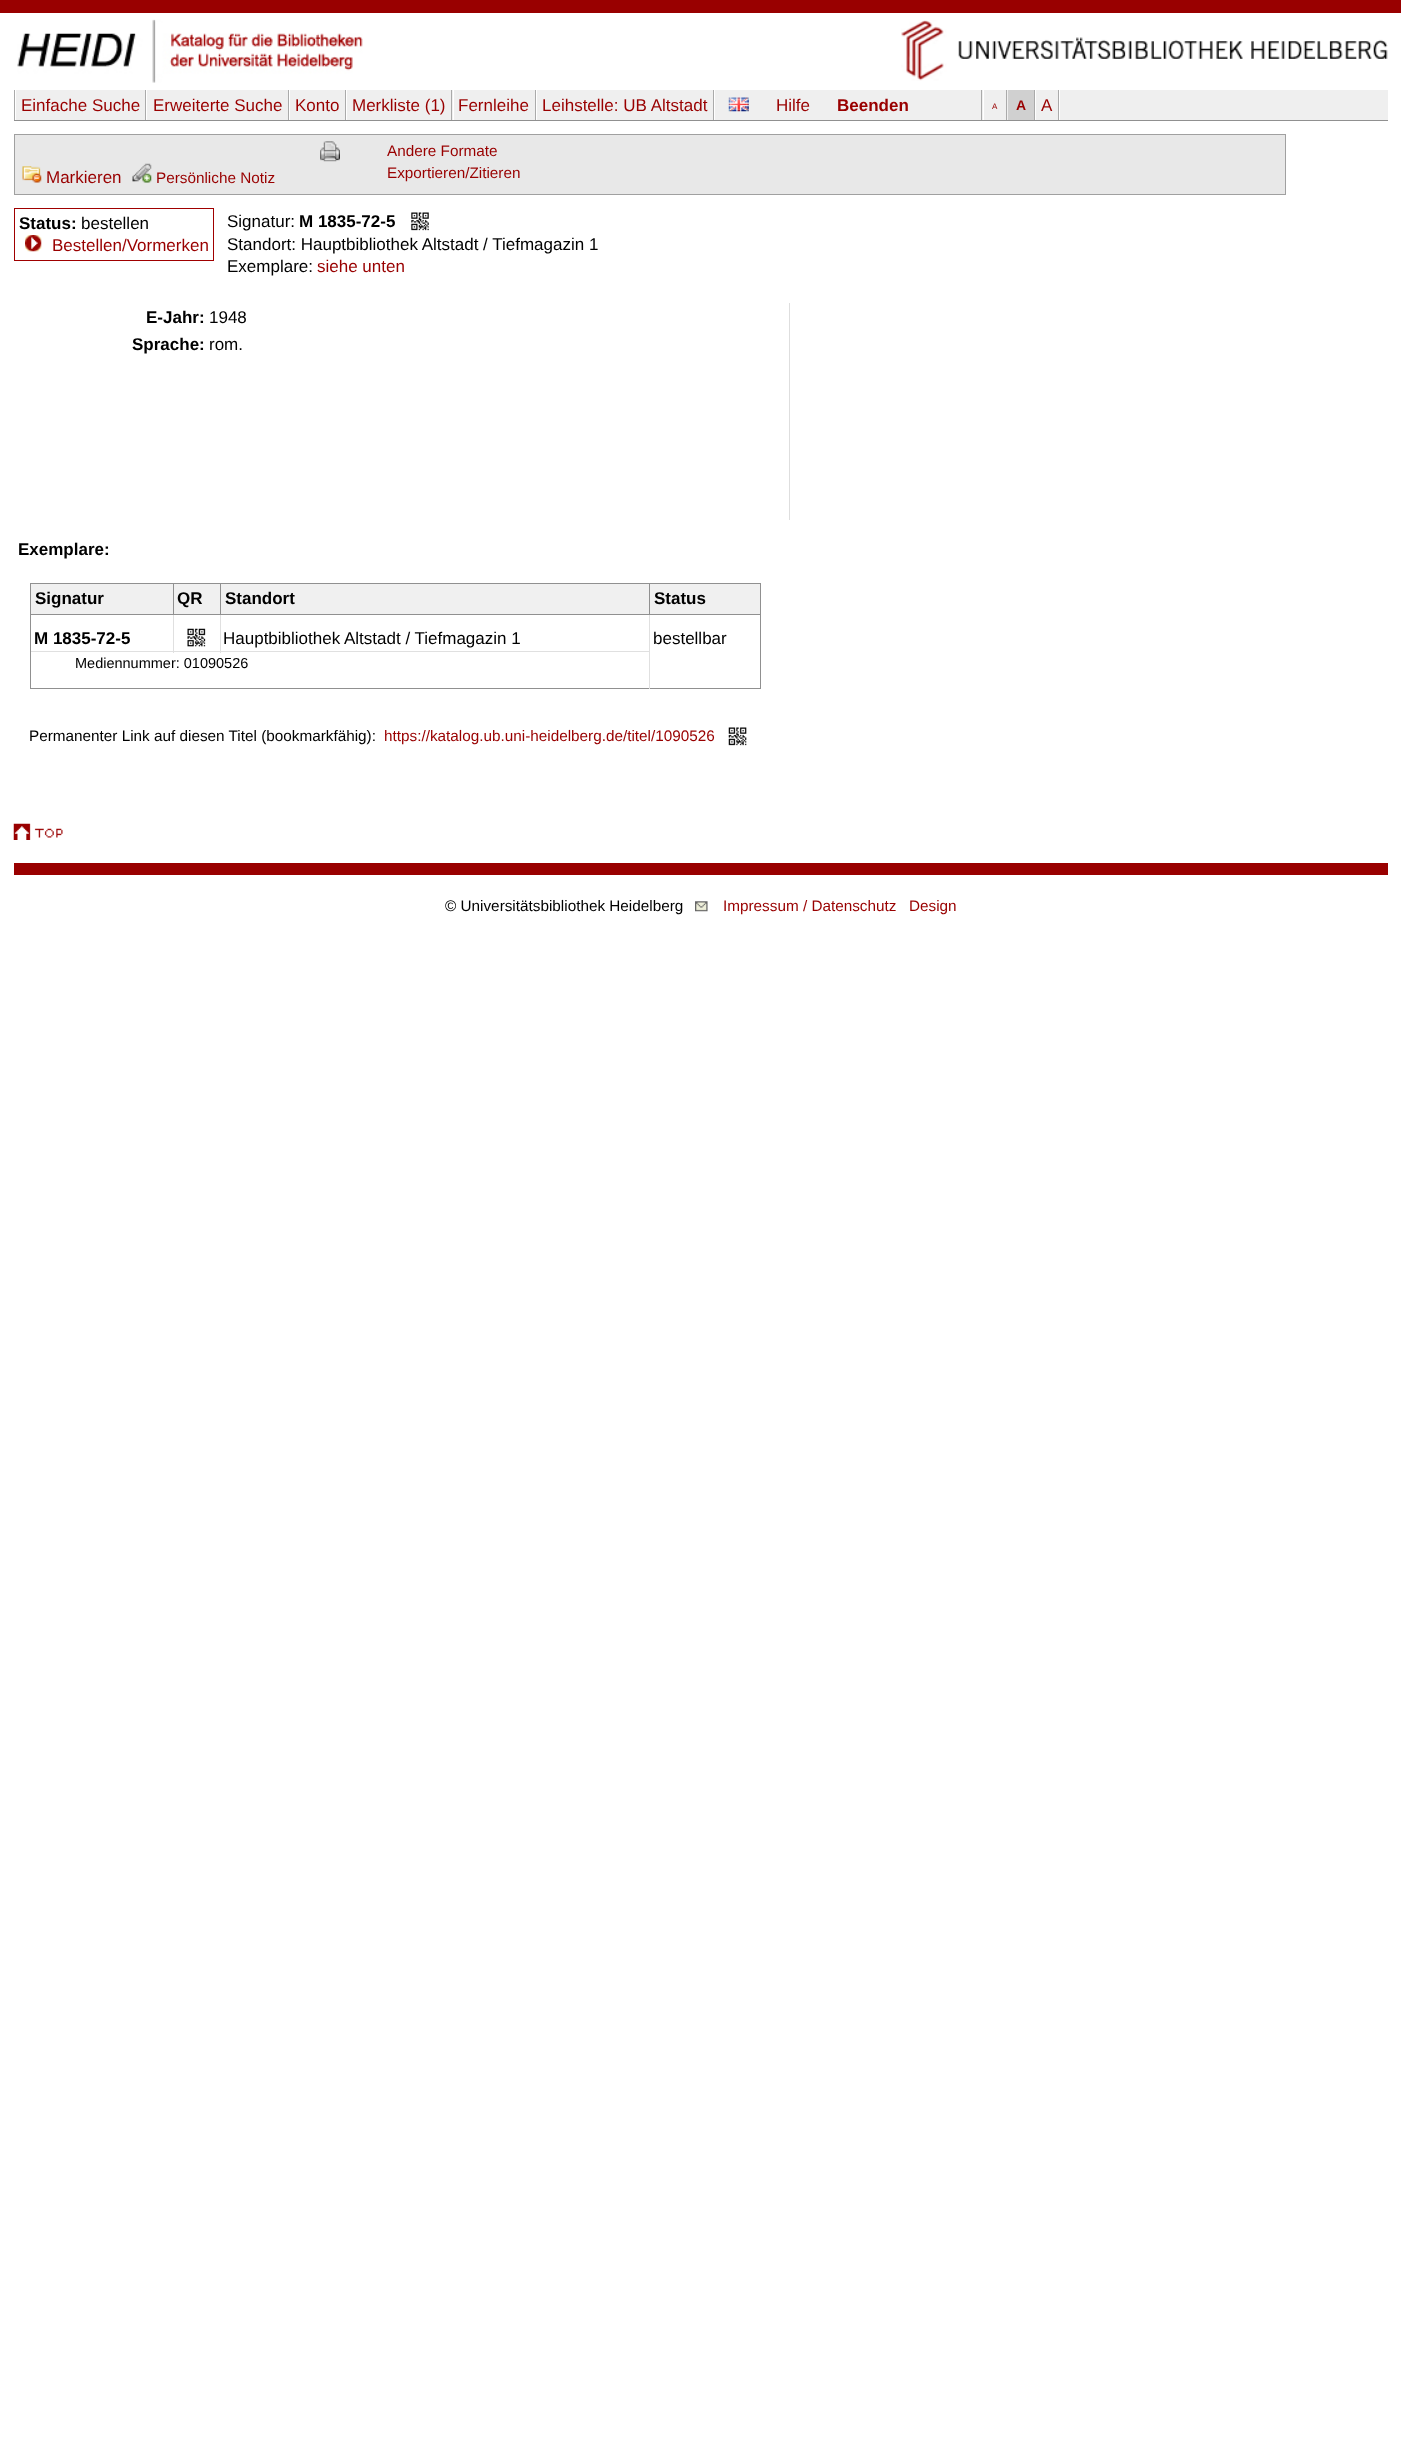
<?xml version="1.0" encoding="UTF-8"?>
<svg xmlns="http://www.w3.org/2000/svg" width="1401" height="2459">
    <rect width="100%" height="100%" fill="#FFFFFF"/>
    <rect x="0" y="0" width="1401" height="13" fill="#990000"/>
    <image x="17" y="19" width="346" height="64" href="img_01.png"/>
    <image x="901" y="20" width="487" height="61" href="img_02.png"/>
    <rect x="16" y="90" width="1372" height="30" fill="#EFEFEF"/>
    <rect x="14" y="120" width="1374" height="1" fill="#909090"/>
    <rect x="714" y="90" width="1" height="30" fill="#FFFFFF"/>
    <rect x="14" y="90" width="1" height="30" fill="#AAAAAA"/>
    <rect x="145" y="90" width="1" height="30" fill="#AAAAAA"/>
    <text x="21" y="111" font-family="Liberation Sans" font-size="17" fill="#990000">Einfache Suche</text>
    <rect x="288" y="90" width="1" height="30" fill="#AAAAAA"/>
    <rect x="146" y="90" width="1" height="30" fill="#FFFFFF"/>
    <text x="153" y="111" font-family="Liberation Sans" font-size="17" fill="#990000">Erweiterte Suche</text>
    <rect x="345" y="90" width="1" height="30" fill="#AAAAAA"/>
    <rect x="289" y="90" width="1" height="30" fill="#FFFFFF"/>
    <text x="295" y="111" font-family="Liberation Sans" font-size="17" fill="#990000">Konto</text>
    <rect x="451" y="90" width="1" height="30" fill="#AAAAAA"/>
    <rect x="346" y="90" width="1" height="30" fill="#FFFFFF"/>
    <text x="352" y="111" font-family="Liberation Sans" font-size="17" fill="#990000">Merkliste (1)</text>
    <rect x="535" y="90" width="1" height="30" fill="#AAAAAA"/>
    <rect x="453" y="90" width="1" height="30" fill="#FFFFFF"/>
    <text x="458" y="111" font-family="Liberation Sans" font-size="17" fill="#990000">Fernleihe</text>
    <rect x="713" y="90" width="1" height="30" fill="#AAAAAA"/>
    <rect x="536" y="90" width="1" height="30" fill="#FFFFFF"/>
    <text x="542" y="111" font-family="Liberation Sans" font-size="17" fill="#990000">Leihstelle: UB Altstadt</text>
    <image x="728" y="97" width="21" height="15" href="img_03.png"/>
    <text x="776" y="111" font-family="Liberation Sans" font-size="17" fill="#990000">Hilfe</text>
    <text x="837" y="111" font-family="Liberation Sans" font-size="17" font-weight="700" fill="#990000">Beenden</text>
    <rect x="1059" y="90" width="1" height="30" fill="#FFFFFF"/>
    <rect x="981" y="90" width="1" height="30" fill="#AAAAAA"/>
    <rect x="1006" y="90" width="1" height="30" fill="#AAAAAA"/>
    <rect x="983" y="90" width="1" height="30" fill="#FFFFFF"/>
    <text x="992" y="109" font-family="Liberation Sans" font-size="8" fill="#990000">A</text>
    <rect x="1008" y="90" width="26" height="30" fill="#D0D0D0"/>
    <rect x="1034" y="90" width="1" height="30" fill="#AAAAAA"/>
    <text x="1016" y="110" font-family="Liberation Sans" font-size="14" font-weight="700" fill="#990000">A</text>
    <rect x="1058" y="90" width="1" height="30" fill="#AAAAAA"/>
    <rect x="1035" y="90" width="1" height="30" fill="#FFFFFF"/>
    <text x="1041" y="111" font-family="Liberation Sans" font-size="17" fill="#990000">A</text>
    <rect x="14.5" y="134.5" width="1271" height="60" fill="#E8E8E8" stroke="#A0A0A0"/>
    <image x="22" y="166" width="20" height="17" href="img_04.png"/>
    <text x="46" y="183" font-family="Liberation Sans" font-size="17" fill="#990000">Markieren</text>
    <image x="132" y="163" width="20" height="20" href="img_05.png"/>
    <text x="156" y="183" font-family="Liberation Sans" font-size="15.3" fill="#990000">Persönliche Notiz</text>
    <image x="320" y="141" width="20" height="21" href="img_06.png"/>
    <text font-family="Liberation Sans" font-size="15.3" fill="#990000">
        <tspan x="387" y="156">Andere Formate</tspan>
        <tspan x="387" y="178">Exportieren/Zitieren</tspan>
    </text>
    <rect x="14.5" y="208.5" width="199" height="52" fill="none" stroke="#A00000"/>
    <text x="19" y="229" font-family="Liberation Sans" font-size="17" font-weight="700" fill="#000000">Status:</text>
    <text x="81" y="229" font-family="Liberation Sans" font-size="17" fill="#000000">bestellen</text>
    <image x="25" y="235" width="17" height="17" href="img_07.png"/>
    <text x="52" y="251" font-family="Liberation Sans" font-size="17" fill="#990000">Bestellen/Vormerken</text>
    <text x="227" y="227" font-family="Liberation Sans" font-size="17" fill="#000000">Signatur:</text>
    <text x="299" y="227" font-family="Liberation Sans" font-size="17" font-weight="700" fill="#000000">M 1835-72-5</text>
    <image x="411" y="212" width="18" height="19" href="img_08.png"/>
    <text font-family="Liberation Sans" font-size="17" fill="#000000">
        <tspan x="227" y="250">Standort: Hauptbibliothek Altstadt / Tiefmagazin 1</tspan>
        <tspan x="227" y="272">Exemplare:</tspan>
    </text>
    <text x="317" y="272" font-family="Liberation Sans" font-size="17" fill="#990000">siehe unten</text>
    <text x="146" y="323" font-family="Liberation Sans" font-size="17" font-weight="700" fill="#000000">E-Jahr:</text>
    <text x="209" y="323" font-family="Liberation Sans" font-size="17" fill="#000000">1948</text>
    <text x="132" y="350" font-family="Liberation Sans" font-size="17" font-weight="700" fill="#000000">Sprache:</text>
    <text x="209" y="350" font-family="Liberation Sans" font-size="17" fill="#000000">rom.</text>
    <rect x="789" y="303" width="1" height="217" fill="#DEDEDE"/>
    <text x="18" y="555" font-family="Liberation Sans" font-size="17" font-weight="700" fill="#000000">Exemplare:</text>
    <rect x="30" y="583" width="731" height="1" fill="#909090"/>
    <rect x="760" y="583" width="1" height="31" fill="#909090"/>
    <rect x="30" y="688" width="731" height="1" fill="#909090"/>
    <rect x="30" y="583" width="1" height="31" fill="#909090"/>
    <rect x="31" y="584" width="729" height="30" fill="#F0F0F0"/>
    <rect x="760" y="614" width="1" height="75" fill="#909090"/>
    <rect x="174" y="651" width="476" height="1" fill="#E0E0E0"/>
    <rect x="649" y="614" width="1" height="75" fill="#E0E0E0"/>
    <rect x="649" y="614" width="112" height="1" fill="#909090"/>
    <rect x="649" y="583" width="1" height="32" fill="#909090"/>
    <rect x="220" y="614" width="1" height="39" fill="#E0E0E0"/>
    <rect x="220" y="614" width="430" height="1" fill="#909090"/>
    <rect x="220" y="583" width="1" height="32" fill="#909090"/>
    <rect x="173" y="614" width="1" height="39" fill="#E0E0E0"/>
    <rect x="173" y="614" width="48" height="1" fill="#909090"/>
    <rect x="173" y="583" width="1" height="32" fill="#909090"/>
    <rect x="30" y="651" width="1" height="38" fill="#909090"/>
    <rect x="30" y="651" width="144" height="1" fill="#E0E0E0"/>
    <rect x="30" y="614" width="1" height="39" fill="#909090"/>
    <rect x="30" y="614" width="144" height="1" fill="#909090"/>
    <text x="35" y="604" font-family="Liberation Sans" font-size="17" font-weight="700" fill="#000000">Signatur</text>
    <text x="177" y="604" font-family="Liberation Sans" font-size="17" font-weight="700" fill="#000000">QR</text>
    <text x="225" y="604" font-family="Liberation Sans" font-size="17" font-weight="700" fill="#000000">Standort</text>
    <text x="654" y="604" font-family="Liberation Sans" font-size="17" font-weight="700" fill="#000000">Status</text>
    <text x="34" y="644" font-family="Liberation Sans" font-size="17" font-weight="700" fill="#000000">M 1835-72-5</text>
    <image x="187" y="628" width="19" height="19" href="img_09.png"/>
    <text x="223" y="644" font-family="Liberation Sans" font-size="17" fill="#000000">Hauptbibliothek Altstadt / Tiefmagazin 1</text>
    <text x="653" y="644" font-family="Liberation Sans" font-size="17" fill="#000000">bestellbar</text>
    <text x="75" y="668" font-family="Liberation Sans" font-size="14.5" fill="#000000">Mediennummer: 01090526</text>
    <text x="29" y="741" font-family="Liberation Sans" font-size="15.3" fill="#000000">Permanenter Link auf diesen Titel (bookmarkfähig):</text>
    <text x="384" y="741" font-family="Liberation Sans" font-size="15.3" fill="#990000">https://katalog.ub.uni-heidelberg.de/titel/1090526</text>
    <image x="728" y="727" width="19" height="19" href="img_10.png"/>
    <image x="13" y="823" width="50" height="17" href="img_11.png"/>
    <rect x="14" y="863" width="1374" height="12" fill="#990000"/>
    <text x="445" y="911" font-family="Liberation Sans" font-size="15.3" fill="#000000">© Universitätsbibliothek Heidelberg</text>
    <image x="695" y="901" width="13" height="11" href="img_12.png"/>
    <text x="723" y="911" font-family="Liberation Sans" font-size="15.3" fill="#990000">Impressum / Datenschutz</text>
    <text x="909" y="911" font-family="Liberation Sans" font-size="15.3" fill="#990000">Design</text>
</svg>
